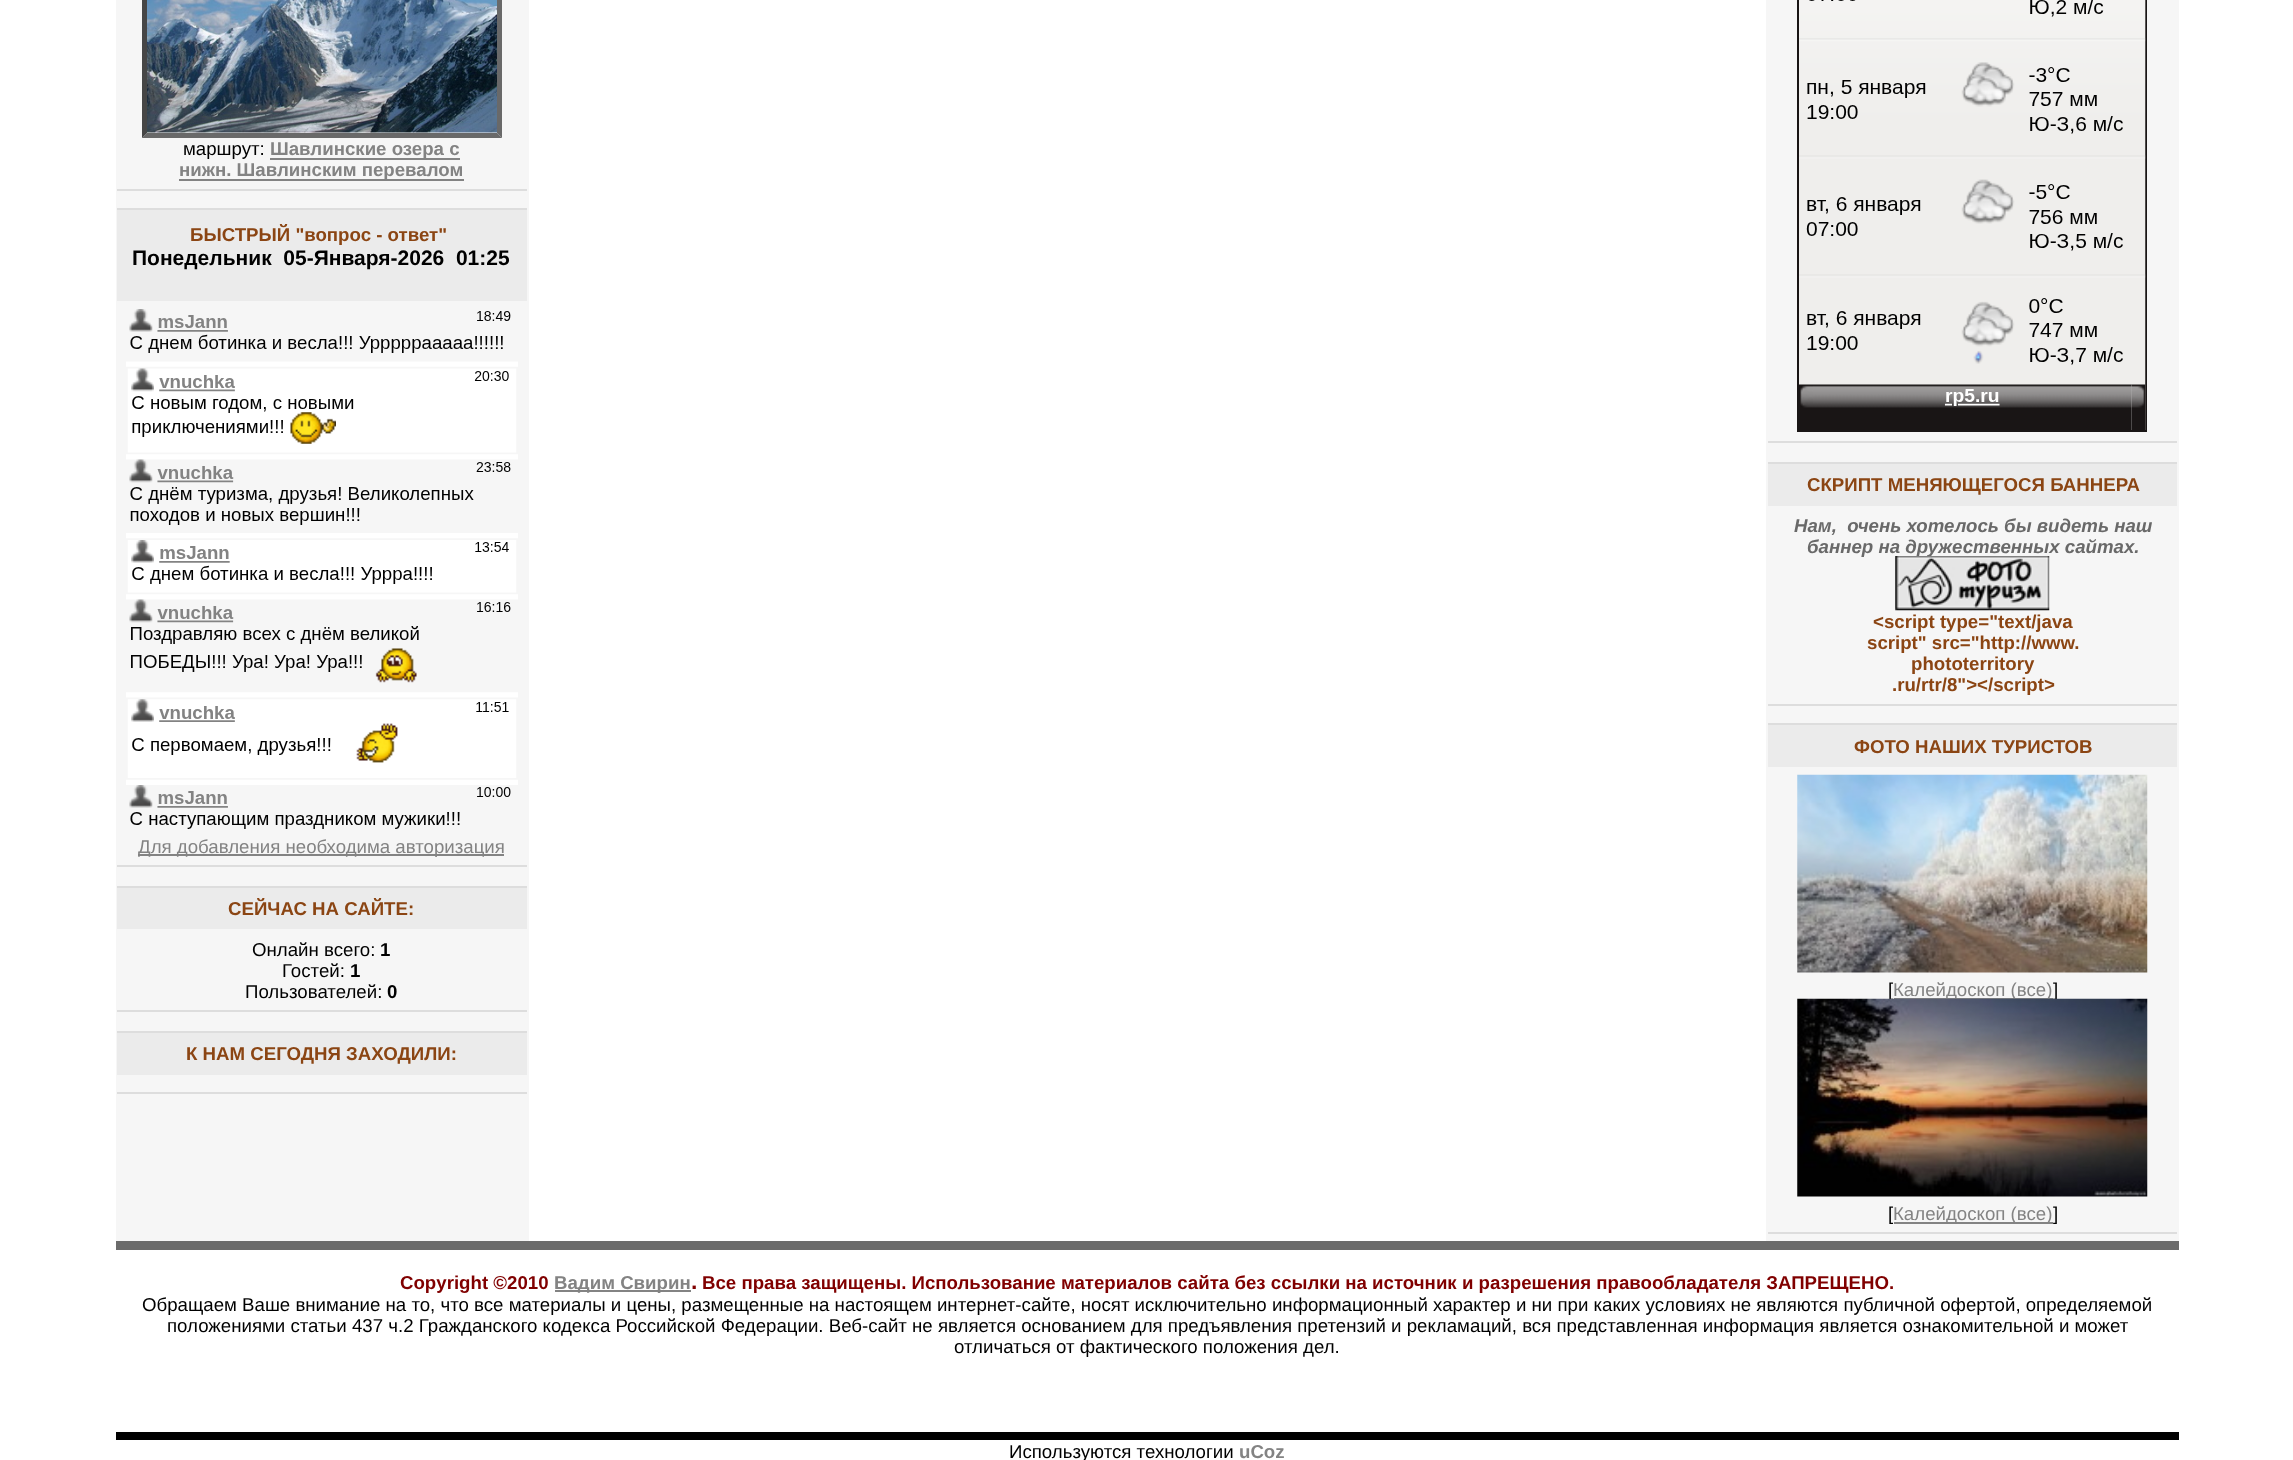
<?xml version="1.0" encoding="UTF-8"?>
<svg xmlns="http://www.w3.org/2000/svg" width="2293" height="1460">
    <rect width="100%" height="100%" fill="#FFFFFF"/>
    <rect x="116" y="0" width="413" height="1241" fill="#F6F6F6"/>
    <rect x="117" y="189" width="410" height="2" fill="#DDDDDD"/>
    <path d="M 502 -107 V 138 L 497 133 V -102 Z" fill="#696969"/>
    <path d="M 502 138 H 142 L 147 133 H 497 Z" fill="#696969"/>
    <path d="M 142 138 V -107 L 147 -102 V 133 Z" fill="#464646"/>
    <image x="147" y="0" width="350" height="133" href="img_01.png"/>
    <text x="183" y="155" font-family="Liberation Sans" font-size="18.67" fill="#000000">маршрут:</text>
    <rect x="270" y="158" width="190" height="2" fill="#838383"/>
    <text x="270" y="155" font-family="Liberation Sans" font-size="18.67" font-weight="700" fill="#838383">Шавлинские озера с</text>
    <rect x="179" y="179" width="285" height="2" fill="#838383"/>
    <text x="179" y="176" font-family="Liberation Sans" font-size="18.67" font-weight="700" fill="#838383">нижн. Шавлинским перевалом</text>
    <rect x="117" y="208" width="410" height="2" fill="#DDDDDD"/>
    <rect x="117" y="865" width="410" height="2" fill="#DDDDDD"/>
    <rect x="117" y="210" width="410" height="91" fill="#EBEBEB"/>
    <text x="190" y="241" font-family="Liberation Sans" font-size="18.67" font-weight="700" fill="#8B4513">БЫСТРЫЙ "вопрос - ответ"</text>
    <text x="132" y="265" font-family="Liberation Sans" font-size="21" font-weight="700" fill="#000000" xml:space="preserve">Понедельник  05-Января-2026  01:25</text>
    <image x="126" y="309" width="392" height="520" href="img_02.png"/>
    <rect x="138" y="854" width="366" height="2" fill="#838383"/>
    <text x="138" y="853" font-family="Liberation Sans" font-size="18.67" fill="#838383">Для добавления необходима авторизация</text>
    <rect x="117" y="886" width="410" height="2" fill="#DDDDDD"/>
    <rect x="117" y="1010" width="410" height="2" fill="#DDDDDD"/>
    <rect x="117" y="888" width="410" height="41" fill="#EBEBEB"/>
    <text x="228" y="915" font-family="Liberation Sans" font-size="18.67" font-weight="700" fill="#8B4513">СЕЙЧАС НА САЙТЕ:</text>
    <text x="252" y="956" font-family="Liberation Sans" font-size="18.67" fill="#000000">Онлайн всего:</text>
    <text x="380" y="956" font-family="Liberation Sans" font-size="18.67" font-weight="700" fill="#000000">1</text>
    <text x="282" y="977" font-family="Liberation Sans" font-size="18.67" fill="#000000">Гостей:</text>
    <text x="350" y="977" font-family="Liberation Sans" font-size="18.67" font-weight="700" fill="#000000">1</text>
    <text x="245" y="998" font-family="Liberation Sans" font-size="18.67" fill="#000000">Пользователей:</text>
    <text x="387" y="998" font-family="Liberation Sans" font-size="18.67" font-weight="700" fill="#000000">0</text>
    <rect x="117" y="1031" width="410" height="2" fill="#DDDDDD"/>
    <rect x="117" y="1092" width="410" height="2" fill="#DDDDDD"/>
    <rect x="117" y="1033" width="410" height="42" fill="#EBEBEB"/>
    <text x="186" y="1060" font-family="Liberation Sans" font-size="18.67" font-weight="700" fill="#8B4513">К НАМ СЕГОДНЯ ЗАХОДИЛИ:</text>
    <rect x="1766" y="0" width="413" height="1241" fill="#F6F6F6"/>
    <rect x="1768" y="441" width="409" height="2" fill="#DDDDDD"/>
    <rect x="1798" y="-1" width="348" height="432" fill="none" stroke="#191515" stroke-width="2"/>
    <image x="1799" y="0" width="347" height="430" href="img_03.png"/>
    <rect x="1768" y="462" width="409" height="2" fill="#DDDDDD"/>
    <rect x="1768" y="704" width="409" height="2" fill="#DDDDDD"/>
    <rect x="1768" y="464" width="409" height="42" fill="#EBEBEB"/>
    <text x="1807" y="491" font-family="Liberation Sans" font-size="18.67" font-weight="700" fill="#8B4513">СКРИПТ МЕНЯЮЩЕГОСЯ БАННЕРА</text>
    <text x="1794" y="532" font-family="Liberation Sans" font-size="18.67" font-weight="700" font-style="italic" fill="#696969" xml:space="preserve">Нам,  очень хотелось бы видеть наш</text>
    <text x="1807" y="553" font-family="Liberation Sans" font-size="18.67" font-weight="700" font-style="italic" fill="#696969">баннер на дружественных сайтах.</text>
    <image x="1895" y="556" width="155" height="55" href="img_04.png"/>
    <text x="1873" y="628" font-family="Liberation Sans" font-size="18.67" font-weight="700" fill="#8B4513">&lt;script type="text/java</text>
    <text x="1867" y="649" font-family="Liberation Sans" font-size="18.67" font-weight="700" fill="#8B4513">script" src="http://www.</text>
    <text x="1911" y="670" font-family="Liberation Sans" font-size="18.67" font-weight="700" fill="#8B4513">phototerritory</text>
    <text x="1892" y="691" font-family="Liberation Sans" font-size="18.67" font-weight="700" fill="#8B4513">.ru/rtr/8"&gt;&lt;/script&gt;</text>
    <rect x="1768" y="723" width="409" height="2" fill="#DDDDDD"/>
    <rect x="1768" y="1232" width="409" height="2" fill="#DDDDDD"/>
    <rect x="1768" y="725" width="409" height="42" fill="#EBEBEB"/>
    <text x="1854" y="753" font-family="Liberation Sans" font-size="18.67" font-weight="700" fill="#8B4513">ФОТО НАШИХ ТУРИСТОВ</text>
    <image x="1797" y="774" width="351" height="199" href="img_05.png"/>
    <text x="1888" y="996" font-family="Liberation Sans" font-size="18.67" fill="#000000">[</text>
    <rect x="1894" y="998" width="159" height="1" fill="#838383"/>
    <text x="1893" y="996" font-family="Liberation Sans" font-size="18.67" fill="#838383">Калейдоскоп (все)</text>
    <text x="2053" y="996" font-family="Liberation Sans" font-size="18.67" fill="#000000">]</text>
    <image x="1797" y="998" width="351" height="199" href="img_06.png"/>
    <text x="1888" y="1220" font-family="Liberation Sans" font-size="18.67" fill="#000000">[</text>
    <rect x="1894" y="1222" width="159" height="2" fill="#838383"/>
    <text x="1893" y="1220" font-family="Liberation Sans" font-size="18.67" fill="#838383">Калейдоскоп (все)</text>
    <text x="2053" y="1220" font-family="Liberation Sans" font-size="18.67" fill="#000000">]</text>
    <rect x="116" y="1241" width="2063" height="9" fill="#6B6B6B"/>
    <rect x="116" y="1432" width="2063" height="8" fill="#000000"/>
    <text x="400" y="1289" font-family="Liberation Sans" font-size="18.67" font-weight="700" fill="#800000">Copyright ©2010</text>
    <rect x="555" y="1290" width="136" height="2" fill="#838383"/>
    <text x="554" y="1289" font-family="Liberation Sans" font-size="18.67" font-weight="700" fill="#838383">Вадим Свирин</text>
    <text x="691" y="1289" font-family="Liberation Sans" font-size="23" font-weight="700" fill="#800000">.</text>
    <text x="702" y="1289" font-family="Liberation Sans" font-size="18.67" font-weight="700" fill="#800000">Все права защищены. Использование материалов сайта без ссылки на источник и разрешения правообладателя ЗАПРЕЩЕНО.</text>
    <text x="142" y="1311" font-family="Liberation Sans" font-size="18.67" fill="#000000">Обращаем Ваше внимание на то, что все материалы и цены, размещенные на настоящем интернет-сайте, носят исключительно информационный характер и ни при каких условиях не являются публичной офертой, определяемой</text>
    <text x="167" y="1332" font-family="Liberation Sans" font-size="18.67" fill="#000000">положениями статьи 437 ч.2 Гражданского кодекса Российской Федерации. Веб-сайт не является основанием для предъявления претензий и рекламаций, вся представленная информация является ознакомительной и может</text>
    <text x="954" y="1353" font-family="Liberation Sans" font-size="18.67" fill="#000000">отличаться от фактического положения дел.</text>
    <text x="1009" y="1458" font-family="Liberation Sans" font-size="18.67" fill="#000000">Используются технологии</text>
    <text x="1239" y="1458" font-family="Liberation Sans" font-size="18.67" font-weight="700" fill="#838383">uCoz</text>
</svg>
